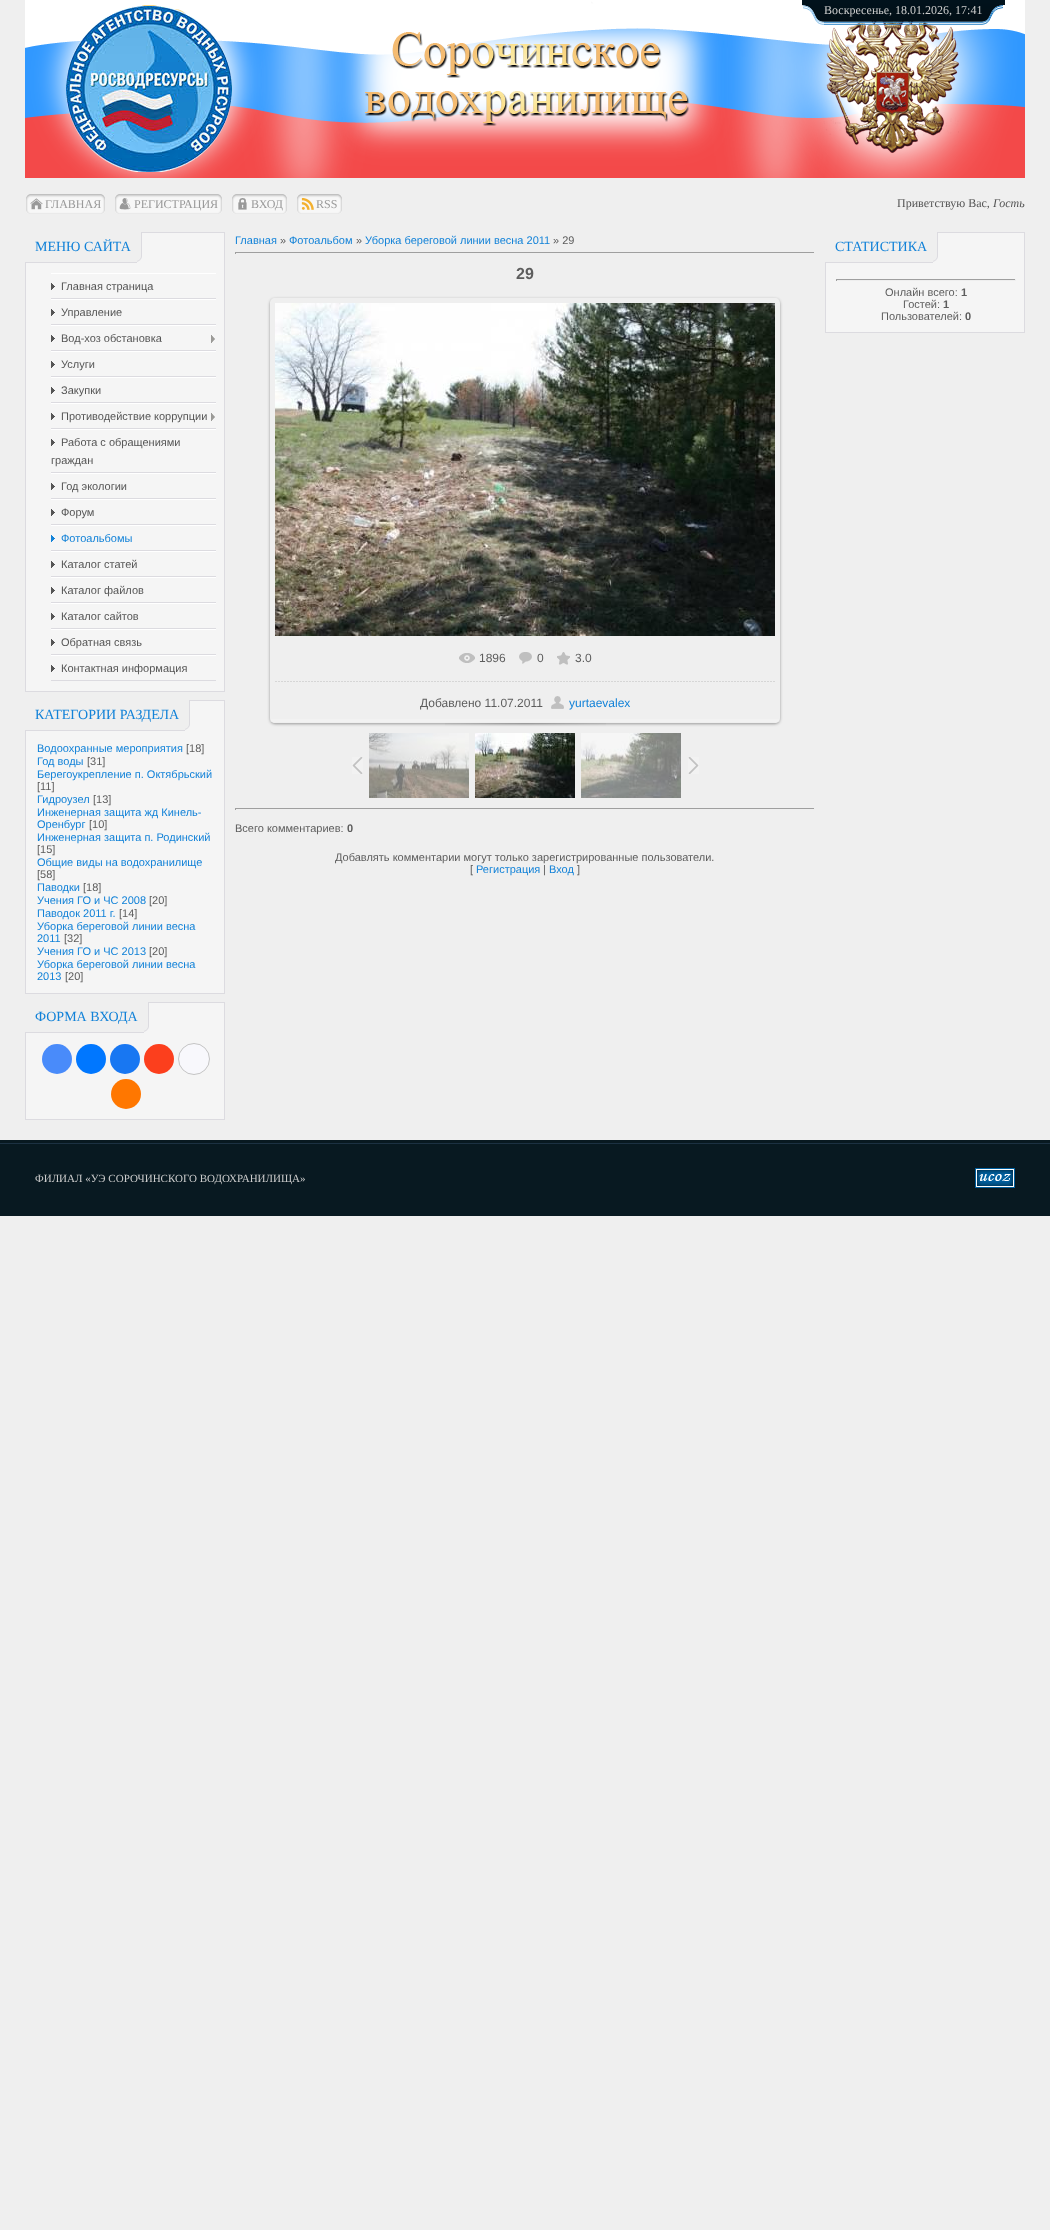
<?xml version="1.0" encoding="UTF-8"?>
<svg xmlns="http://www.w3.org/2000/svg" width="1050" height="2230">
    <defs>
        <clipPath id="clip1"><path d="M 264 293 H 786 V 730 H 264 Z M 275 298 H 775 C 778 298 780 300 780 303 V 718 C 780 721 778 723 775 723 H 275 C 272 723 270 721 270 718 V 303 C 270 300 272 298 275 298 Z" clip-rule="evenodd"/></clipPath>
        <filter id="blur1" x="-50%" y="-200%" width="200%" height="500%"><feGaussianBlur stdDeviation="1.5"/></filter>
    </defs>
    <rect width="100%" height="100%" fill="#EFEFEF"/>
    <image x="25" y="0" width="1000" height="178" href="img_01.png"/>
    <image x="824" y="0" width="158" height="25" href="img_03.png"/>
    <text x="824" y="14" font-family="Liberation Serif" font-size="12" fill="#CCCCCC">Воскресенье, 18.01.2026, 17:41</text>
    <image x="802" y="0" width="22" height="25" href="img_02.png"/>
    <image x="982" y="0" width="23" height="25" href="img_04.png"/>
    <image x="26" y="194" width="4" height="20" href="img_05.png"/>
    <image x="30" y="194" width="71" height="20" href="img_06.png"/>
    <image x="30" y="198" width="13" height="12" href="img_07.png"/>
    <text x="45" y="208" font-family="Liberation Serif" font-size="12" fill="#999999">ГЛАВНАЯ</text>
    <image x="101" y="194" width="4" height="20" href="img_08.png"/>
    <image x="115" y="194" width="4" height="20" href="img_05.png"/>
    <image x="119" y="194" width="99" height="20" href="img_09.png"/>
    <image x="119" y="198" width="12" height="12" href="img_10.png"/>
    <text x="134" y="208" font-family="Liberation Serif" font-size="12" fill="#999999">РЕГИСТРАЦИЯ</text>
    <image x="218" y="194" width="4" height="20" href="img_08.png"/>
    <image x="232" y="194" width="4" height="20" href="img_05.png"/>
    <image x="236" y="194" width="47" height="20" href="img_11.png"/>
    <image x="238" y="198" width="9" height="12" href="img_12.png"/>
    <text x="251" y="208" font-family="Liberation Serif" font-size="12" fill="#999999">ВХОД</text>
    <image x="283" y="194" width="4" height="20" href="img_08.png"/>
    <image x="297" y="194" width="4" height="20" href="img_05.png"/>
    <image x="301" y="194" width="37" height="20" href="img_13.png"/>
    <image x="301" y="197" width="13" height="13" href="img_14.png"/>
    <text x="316" y="208" font-family="Liberation Serif" font-size="12" fill="#999999">RSS</text>
    <image x="338" y="194" width="4" height="20" href="img_08.png"/>
    <text x="897" y="207" font-family="Liberation Serif" font-size="12" fill="#555555">Приветствую Вас,</text>
    <text x="993" y="207" font-family="Liberation Serif" font-size="12" font-style="italic" fill="#555555">Гость</text>
    <rect x="26" y="233" width="198" height="458" fill="#F5F5F5"/>
    <rect x="142" y="232" width="83" height="1" fill="#DCDBE0"/>
    <rect x="224" y="232" width="1" height="460" fill="#DCDBE0"/>
    <rect x="26" y="233" width="111" height="29" fill="#EFEFEF"/>
    <rect x="25" y="262" width="112" height="1" fill="#DCDBE0"/>
    <text x="35" y="251" font-family="Liberation Serif" font-size="14" fill="#1282D8">МЕНЮ САЙТА</text>
    <image x="137" y="232" width="5" height="30" href="img_15.png"/>
    <rect x="25" y="691" width="200" height="1" fill="#DCDBE0"/>
    <rect x="25" y="263" width="1" height="429" fill="#DCDBE0"/>
    <rect x="51" y="273" width="165" height="1" fill="#FFFFFF"/>
    <rect x="51" y="298" width="165" height="1" fill="#DCDBE0"/>
    <image x="51" y="283" width="4" height="7" href="img_16.png"/>
    <text x="61" y="290" font-family="Liberation Sans" font-size="11" fill="#555555">Главная страница</text>
    <rect x="51" y="299" width="165" height="1" fill="#FFFFFF"/>
    <rect x="51" y="324" width="165" height="1" fill="#DCDBE0"/>
    <image x="51" y="309" width="4" height="7" href="img_16.png"/>
    <text x="61" y="316" font-family="Liberation Sans" font-size="11" fill="#555555">Управление</text>
    <rect x="51" y="325" width="165" height="1" fill="#FFFFFF"/>
    <rect x="51" y="350" width="165" height="1" fill="#DCDBE0"/>
    <image x="51" y="335" width="4" height="7" href="img_16.png"/>
    <text x="61" y="342" font-family="Liberation Sans" font-size="11" fill="#555555">Вод-хоз обстановка</text>
    <image x="211" y="335" width="4" height="8" href="img_17.png"/>
    <rect x="51" y="351" width="165" height="1" fill="#FFFFFF"/>
    <rect x="51" y="376" width="165" height="1" fill="#DCDBE0"/>
    <image x="51" y="361" width="4" height="7" href="img_16.png"/>
    <text x="61" y="368" font-family="Liberation Sans" font-size="11" fill="#555555">Услуги</text>
    <rect x="51" y="377" width="165" height="1" fill="#FFFFFF"/>
    <rect x="51" y="402" width="165" height="1" fill="#DCDBE0"/>
    <image x="51" y="387" width="4" height="7" href="img_16.png"/>
    <text x="61" y="394" font-family="Liberation Sans" font-size="11" fill="#555555">Закупки</text>
    <rect x="51" y="403" width="165" height="1" fill="#FFFFFF"/>
    <rect x="51" y="428" width="165" height="1" fill="#DCDBE0"/>
    <image x="51" y="413" width="4" height="7" href="img_16.png"/>
    <text x="61" y="420" font-family="Liberation Sans" font-size="11" fill="#555555">Противодействие коррупции</text>
    <image x="211" y="413" width="4" height="8" href="img_17.png"/>
    <rect x="51" y="429" width="165" height="1" fill="#FFFFFF"/>
    <rect x="51" y="472" width="165" height="1" fill="#DCDBE0"/>
    <image x="51" y="439" width="4" height="7" href="img_16.png"/>
    <text x="61" y="446" font-family="Liberation Sans" font-size="11" fill="#555555">Работа с обращениями</text>
    <text x="51" y="464" font-family="Liberation Sans" font-size="11" fill="#555555">граждан</text>
    <rect x="51" y="473" width="165" height="1" fill="#FFFFFF"/>
    <rect x="51" y="498" width="165" height="1" fill="#DCDBE0"/>
    <image x="51" y="483" width="4" height="7" href="img_16.png"/>
    <text x="61" y="490" font-family="Liberation Sans" font-size="11" fill="#555555">Год экологии</text>
    <rect x="51" y="499" width="165" height="1" fill="#FFFFFF"/>
    <rect x="51" y="524" width="165" height="1" fill="#DCDBE0"/>
    <image x="51" y="509" width="4" height="7" href="img_16.png"/>
    <text x="61" y="516" font-family="Liberation Sans" font-size="11" fill="#555555">Форум</text>
    <rect x="51" y="525" width="165" height="1" fill="#FFFFFF"/>
    <rect x="51" y="550" width="165" height="1" fill="#DCDBE0"/>
    <image x="51" y="535" width="4" height="7" href="img_18.png"/>
    <text x="61" y="542" font-family="Liberation Sans" font-size="11" fill="#1282D8">Фотоальбомы</text>
    <rect x="51" y="551" width="165" height="1" fill="#FFFFFF"/>
    <rect x="51" y="576" width="165" height="1" fill="#DCDBE0"/>
    <image x="51" y="561" width="4" height="7" href="img_16.png"/>
    <text x="61" y="568" font-family="Liberation Sans" font-size="11" fill="#555555">Каталог статей</text>
    <rect x="51" y="577" width="165" height="1" fill="#FFFFFF"/>
    <rect x="51" y="602" width="165" height="1" fill="#DCDBE0"/>
    <image x="51" y="587" width="4" height="7" href="img_16.png"/>
    <text x="61" y="594" font-family="Liberation Sans" font-size="11" fill="#555555">Каталог файлов</text>
    <rect x="51" y="603" width="165" height="1" fill="#FFFFFF"/>
    <rect x="51" y="628" width="165" height="1" fill="#DCDBE0"/>
    <image x="51" y="613" width="4" height="7" href="img_16.png"/>
    <text x="61" y="620" font-family="Liberation Sans" font-size="11" fill="#555555">Каталог сайтов</text>
    <rect x="51" y="629" width="165" height="1" fill="#FFFFFF"/>
    <rect x="51" y="654" width="165" height="1" fill="#DCDBE0"/>
    <image x="51" y="639" width="4" height="7" href="img_16.png"/>
    <text x="61" y="646" font-family="Liberation Sans" font-size="11" fill="#555555">Обратная связь</text>
    <rect x="51" y="655" width="165" height="1" fill="#FFFFFF"/>
    <rect x="51" y="680" width="165" height="1" fill="#DCDBE0"/>
    <image x="51" y="665" width="4" height="7" href="img_16.png"/>
    <text x="61" y="672" font-family="Liberation Sans" font-size="11" fill="#555555">Контактная информация</text>
    <rect x="26" y="701" width="198" height="292" fill="#F5F5F5"/>
    <rect x="190" y="700" width="35" height="1" fill="#DCDBE0"/>
    <rect x="224" y="700" width="1" height="294" fill="#DCDBE0"/>
    <rect x="26" y="701" width="159" height="29" fill="#EFEFEF"/>
    <rect x="25" y="730" width="160" height="1" fill="#DCDBE0"/>
    <text x="35" y="719" font-family="Liberation Serif" font-size="14" fill="#1282D8">КАТЕГОРИИ РАЗДЕЛА</text>
    <image x="185" y="700" width="5" height="30" href="img_15.png"/>
    <rect x="25" y="993" width="200" height="1" fill="#DCDBE0"/>
    <rect x="25" y="731" width="1" height="263" fill="#DCDBE0"/>
    <text x="37" y="752" font-family="Liberation Sans" font-size="11" fill="#1282D8">Водоохранные мероприятия</text>
    <text x="186" y="752" font-family="Liberation Sans" font-size="11" fill="#5D5D5D">[18]</text>
    <text x="37" y="765" font-family="Liberation Sans" font-size="11" fill="#1282D8">Год воды</text>
    <text x="87" y="765" font-family="Liberation Sans" font-size="11" fill="#5D5D5D">[31]</text>
    <text x="37" y="778" font-family="Liberation Sans" font-size="11" fill="#1282D8">Берегоукрепление п. Октябрьский</text>
    <text x="37" y="790" font-family="Liberation Sans" font-size="11" fill="#5D5D5D">[11]</text>
    <text x="37" y="803" font-family="Liberation Sans" font-size="11" fill="#1282D8">Гидроузел</text>
    <text x="93" y="803" font-family="Liberation Sans" font-size="11" fill="#5D5D5D">[13]</text>
    <text font-family="Liberation Sans" font-size="11" fill="#1282D8">
        <tspan x="37" y="816">Инженерная защита жд Кинель-</tspan>
        <tspan x="37" y="828">Оренбург</tspan>
    </text>
    <text x="89" y="828" font-family="Liberation Sans" font-size="11" fill="#5D5D5D">[10]</text>
    <text x="37" y="841" font-family="Liberation Sans" font-size="11" fill="#1282D8">Инженерная защита п. Родинский</text>
    <text x="37" y="853" font-family="Liberation Sans" font-size="11" fill="#5D5D5D">[15]</text>
    <text x="37" y="866" font-family="Liberation Sans" font-size="11" fill="#1282D8">Общие виды на водохранилище</text>
    <text x="37" y="878" font-family="Liberation Sans" font-size="11" fill="#5D5D5D">[58]</text>
    <text x="37" y="891" font-family="Liberation Sans" font-size="11" fill="#1282D8">Паводки</text>
    <text x="83" y="891" font-family="Liberation Sans" font-size="11" fill="#5D5D5D">[18]</text>
    <text x="37" y="904" font-family="Liberation Sans" font-size="11" fill="#1282D8">Учения ГО и ЧС 2008</text>
    <text x="149" y="904" font-family="Liberation Sans" font-size="11" fill="#5D5D5D">[20]</text>
    <text x="37" y="917" font-family="Liberation Sans" font-size="11" fill="#1282D8">Паводок 2011 г.</text>
    <text x="119" y="917" font-family="Liberation Sans" font-size="11" fill="#5D5D5D">[14]</text>
    <text font-family="Liberation Sans" font-size="11" fill="#1282D8">
        <tspan x="37" y="930">Уборка береговой линии весна</tspan>
        <tspan x="37" y="942">2011</tspan>
    </text>
    <text x="64" y="942" font-family="Liberation Sans" font-size="11" fill="#5D5D5D">[32]</text>
    <text x="37" y="955" font-family="Liberation Sans" font-size="11" fill="#1282D8">Учения ГО и ЧС 2013</text>
    <text x="149" y="955" font-family="Liberation Sans" font-size="11" fill="#5D5D5D">[20]</text>
    <text font-family="Liberation Sans" font-size="11" fill="#1282D8">
        <tspan x="37" y="968">Уборка береговой линии весна</tspan>
        <tspan x="37" y="980">2013</tspan>
    </text>
    <text x="65" y="980" font-family="Liberation Sans" font-size="11" fill="#5D5D5D">[20]</text>
    <rect x="26" y="1003" width="198" height="116" fill="#F5F5F5"/>
    <rect x="149" y="1002" width="76" height="1" fill="#DCDBE0"/>
    <rect x="224" y="1002" width="1" height="118" fill="#DCDBE0"/>
    <rect x="26" y="1003" width="118" height="29" fill="#EFEFEF"/>
    <rect x="25" y="1032" width="119" height="1" fill="#DCDBE0"/>
    <text x="35" y="1021" font-family="Liberation Serif" font-size="14" fill="#1282D8">ФОРМА ВХОДА</text>
    <image x="144" y="1002" width="5" height="30" href="img_15.png"/>
    <rect x="25" y="1119" width="200" height="1" fill="#DCDBE0"/>
    <rect x="25" y="1033" width="1" height="87" fill="#DCDBE0"/>
    <circle cx="57" cy="1059" r="15" fill="#498BFA"/>
    <circle cx="91" cy="1059" r="15" fill="#0077FF"/>
    <circle cx="125" cy="1059" r="15" fill="#1877F2"/>
    <circle cx="159" cy="1059" r="15" fill="#FC3F1D"/>
    <circle cx="194" cy="1059" r="15.5" fill="#F8F8FC" stroke="#C4C4C4"/>
    <circle cx="126" cy="1094" r="15" fill="#FF7700"/>
    <text x="235" y="244" font-family="Liberation Sans" font-size="11" fill="#1282D8">Главная</text>
    <text x="280" y="244" font-family="Liberation Sans" font-size="11" fill="#5D5D5D">»</text>
    <text x="289" y="244" font-family="Liberation Sans" font-size="11" fill="#1282D8">Фотоальбом</text>
    <text x="356" y="244" font-family="Liberation Sans" font-size="11" fill="#5D5D5D">»</text>
    <text x="365" y="244" font-family="Liberation Sans" font-size="11" fill="#1282D8">Уборка береговой линии весна 2011</text>
    <text x="553" y="244" font-family="Liberation Sans" font-size="11" fill="#5D5D5D">» 29</text>
    <rect x="235" y="252" width="580" height="1" fill="#9F9F9F"/>
    <rect x="814" y="252" width="1" height="2" fill="#EEEEEE"/>
    <rect x="235" y="252" width="1" height="2" fill="#9F9F9F"/>
    <text x="516" y="279" font-family="Liberation Sans" font-size="16" font-weight="700" fill="#5D5D5D">29</text>
    <g clip-path="url(#clip1)">
        <rect x="270" y="299" width="510" height="425" rx="5" fill="#000000" fill-opacity="0.37" filter="url(#blur1)"/>
    </g>
    <rect x="270" y="719" width="510" height="3" fill="#FFFFFF" fill-opacity="0.2"/>
    <image x="275" y="303" width="500" height="333" href="img_19.png"/>
    <image x="459" y="653" width="16" height="10" href="img_20.png"/>
    <text x="479" y="662" font-family="Liberation Sans" font-size="12" fill="#5D5D5D">1896</text>
    <image x="519" y="652" width="13" height="12" href="img_21.png"/>
    <text x="537" y="662" font-family="Liberation Sans" font-size="12" fill="#5D5D5D">0</text>
    <image x="557" y="652" width="13" height="13" href="img_22.png"/>
    <text x="575" y="662" font-family="Liberation Sans" font-size="12" fill="#5D5D5D">3.0</text>
    <image x="275" y="681" width="500" height="1" href="img_23.png"/>
    <text x="420" y="707" font-family="Liberation Sans" font-size="12" fill="#5D5D5D">Добавлено 11.07.2011</text>
    <image x="551" y="696" width="13" height="13" href="img_24.png"/>
    <text x="569" y="707" font-family="Liberation Sans" font-size="12" fill="#1282D8">yurtaevalex</text>
    <image x="445" y="723" width="161" height="3" href="img_25.png"/>
    <image x="352" y="757" width="11" height="17" href="img_26.png"/>
    <image x="369" y="733" width="100" height="65" href="img_27.png"/>
    <image x="475" y="733" width="100" height="65" href="img_28.png"/>
    <image x="581" y="733" width="100" height="65" href="img_29.png"/>
    <image x="688" y="757" width="11" height="17" href="img_30.png"/>
    <rect x="235" y="808" width="580" height="1" fill="#9F9F9F"/>
    <rect x="814" y="808" width="1" height="2" fill="#EEEEEE"/>
    <rect x="235" y="808" width="1" height="2" fill="#9F9F9F"/>
    <text x="235" y="832" font-family="Liberation Sans" font-size="11" fill="#5D5D5D">Всего комментариев:</text>
    <text x="347" y="832" font-family="Liberation Sans" font-size="11" font-weight="700" fill="#5D5D5D">0</text>
    <text x="335" y="861" font-family="Liberation Sans" font-size="11" fill="#5D5D5D">Добавлять комментарии могут только зарегистрированные пользователи.</text>
    <text x="470" y="873" font-family="Liberation Sans" font-size="11" fill="#5D5D5D">[</text>
    <text x="476" y="873" font-family="Liberation Sans" font-size="11" fill="#1282D8">Регистрация</text>
    <text x="543" y="873" font-family="Liberation Sans" font-size="11" fill="#5D5D5D">|</text>
    <text x="549" y="873" font-family="Liberation Sans" font-size="11" fill="#1282D8">Вход</text>
    <text x="577" y="873" font-family="Liberation Sans" font-size="11" fill="#5D5D5D">]</text>
    <rect x="826" y="233" width="198" height="99" fill="#F5F5F5"/>
    <rect x="938" y="232" width="87" height="1" fill="#DCDBE0"/>
    <rect x="1024" y="232" width="1" height="101" fill="#DCDBE0"/>
    <rect x="826" y="233" width="107" height="29" fill="#EFEFEF"/>
    <rect x="825" y="262" width="108" height="1" fill="#DCDBE0"/>
    <text x="835" y="251" font-family="Liberation Serif" font-size="14" fill="#1282D8">СТАТИСТИКА</text>
    <image x="933" y="232" width="5" height="30" href="img_15.png"/>
    <rect x="825" y="332" width="200" height="1" fill="#DCDBE0"/>
    <rect x="825" y="263" width="1" height="70" fill="#DCDBE0"/>
    <rect x="836" y="279" width="180" height="1" fill="#9F9F9F"/>
    <rect x="1015" y="279" width="1" height="2" fill="#EEEEEE"/>
    <rect x="836" y="280" width="180" height="1" fill="#EEEEEE"/>
    <rect x="836" y="279" width="1" height="2" fill="#9F9F9F"/>
    <text x="885" y="296" font-family="Liberation Sans" font-size="11" fill="#5D5D5D">Онлайн всего:</text>
    <text x="961" y="296" font-family="Liberation Sans" font-size="11" font-weight="700" fill="#5D5D5D">1</text>
    <text x="903" y="308" font-family="Liberation Sans" font-size="11" fill="#5D5D5D">Гостей:</text>
    <text x="943" y="308" font-family="Liberation Sans" font-size="11" font-weight="700" fill="#5D5D5D">1</text>
    <text x="881" y="320" font-family="Liberation Sans" font-size="11" fill="#5D5D5D">Пользователей:</text>
    <text x="965" y="320" font-family="Liberation Sans" font-size="11" font-weight="700" fill="#5D5D5D">0</text>
    <image x="0" y="1140" width="1050" height="76" href="img_31.png"/>
    <text x="35" y="1182" font-family="Liberation Serif" font-size="11" fill="#CCCCCC">ФИЛИАЛ «УЭ СОРОЧИНСКОГО ВОДОХРАНИЛИЩА»</text>
    <image x="975" y="1168" width="40" height="20" href="img_32.png"/>
</svg>
